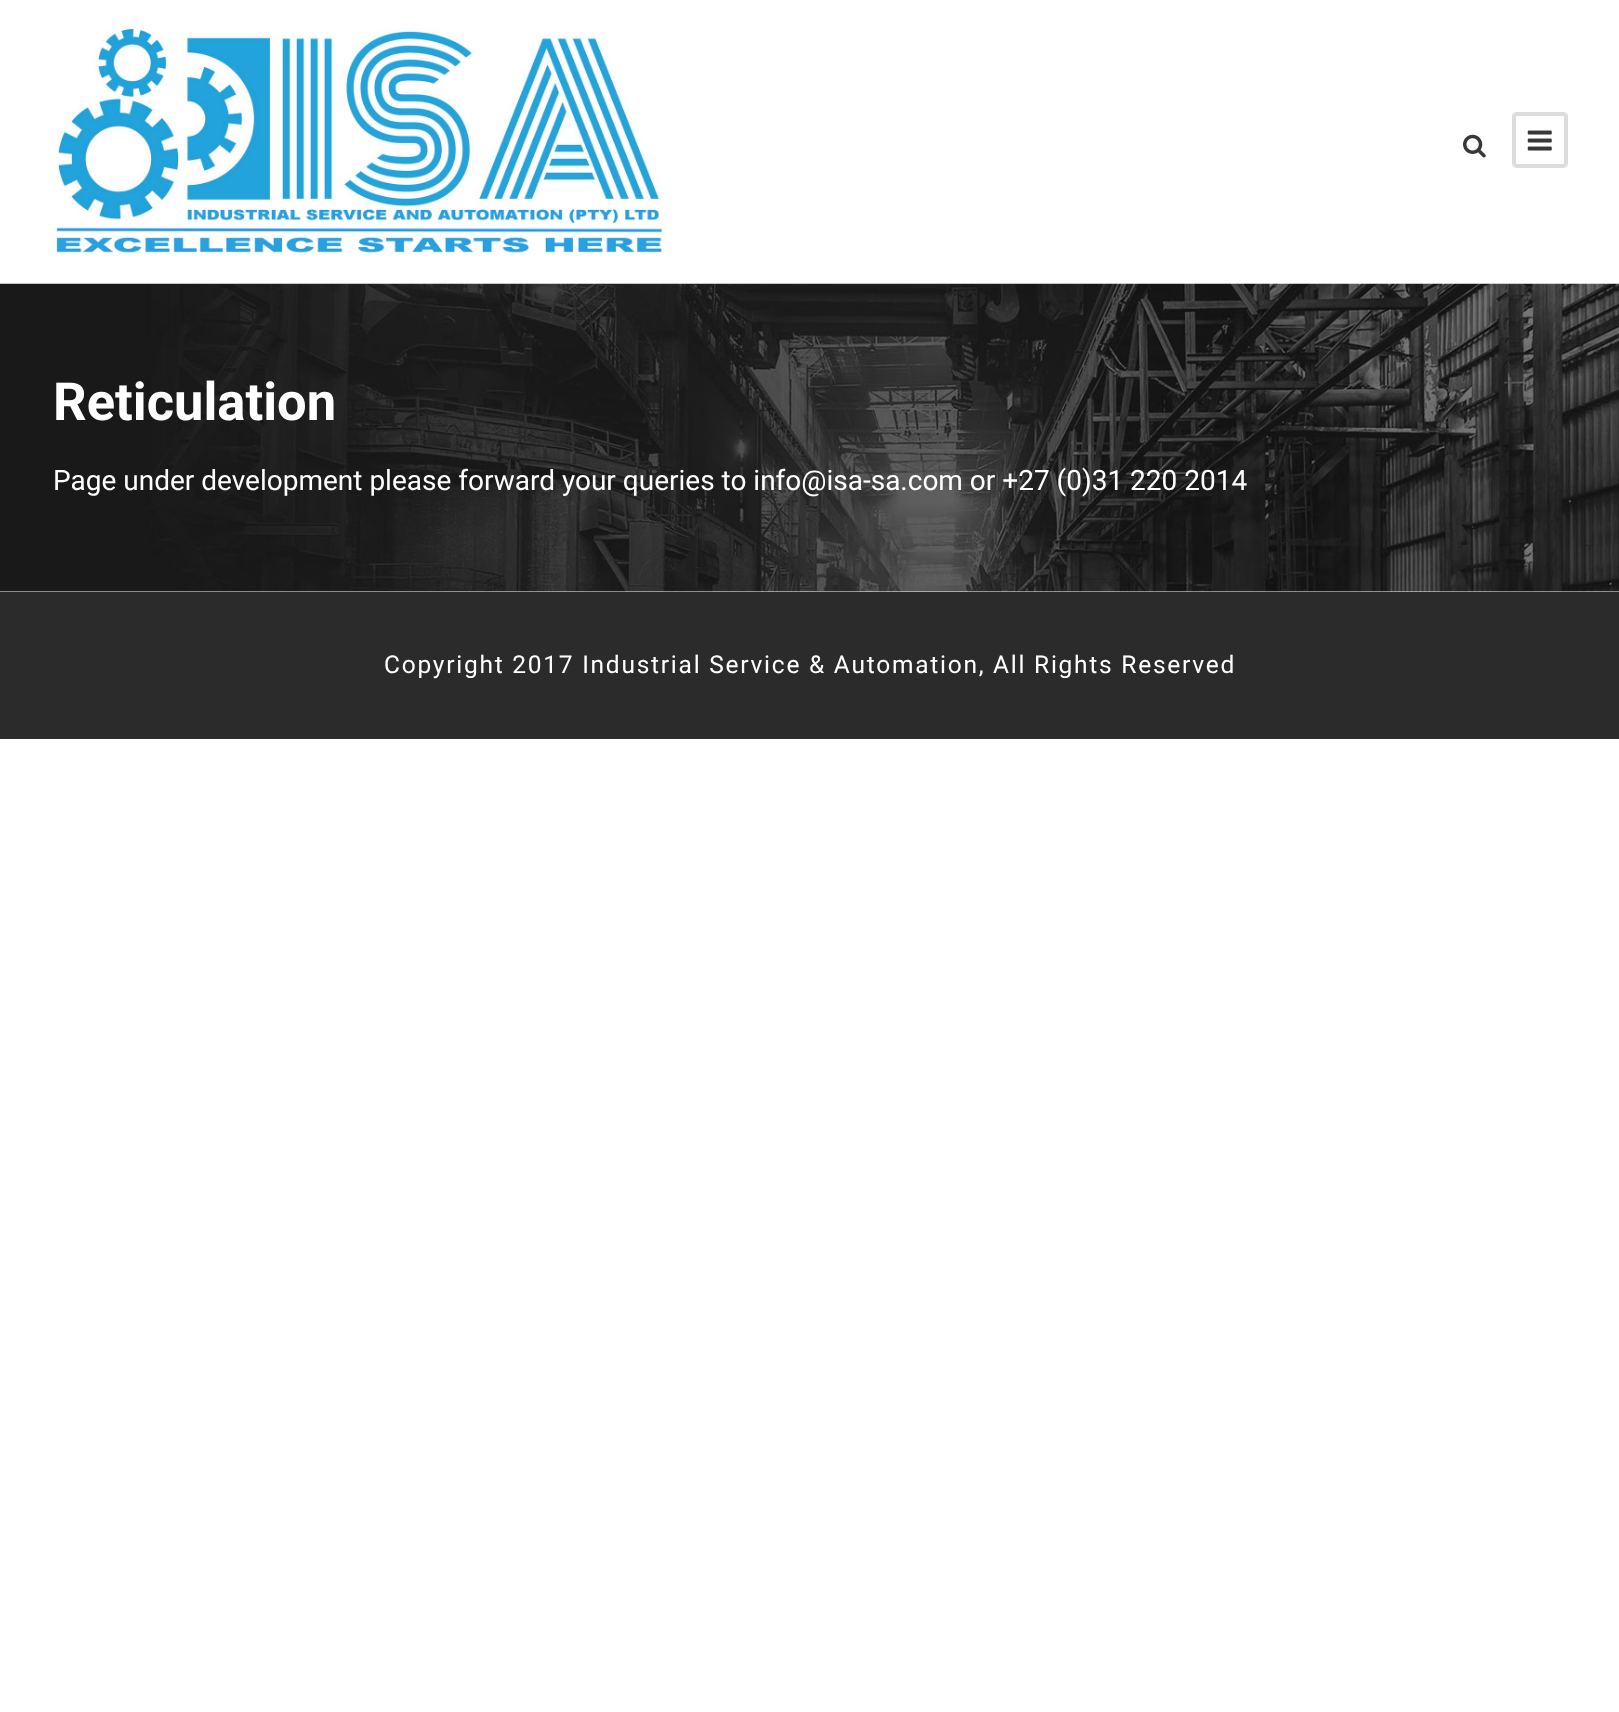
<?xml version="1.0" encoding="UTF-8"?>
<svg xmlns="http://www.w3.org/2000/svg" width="1619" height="1712">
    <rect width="100%" height="100%" fill="#FFFFFF"/>
    <image x="56" y="28" width="607" height="225" href="img_01.png"/>
    <image x="1463" y="134" width="23" height="24" href="img_02.png"/>
    <rect x="1514" y="114" width="52" height="52" rx="3" fill="none" stroke="#DDDDDD" stroke-width="4"/>
    <image x="1527" y="130" width="25" height="21" href="img_03.png"/>
    <image x="0" y="283" width="1619" height="309" href="img_04.png"/>
    <text x="53" y="420" font-family="Roboto" font-size="52.5" font-weight="700" fill="#FFFFFF">Reticulation</text>
    <text x="53" y="490" font-family="Roboto" font-size="28" fill="#FFFFFF">Page under development please forward your queries to info@isa-sa.com or +27 (0)31 220 2014</text>
    <rect x="0" y="592" width="1619" height="147" fill="#2B2B2B"/>
    <text x="384" y="673" font-family="Roboto" font-size="24.5" letter-spacing="1.75" fill="#FFFFFF">Copyright 2017 Industrial Service &amp; Automation, All Rights Reserved</text>
</svg>
